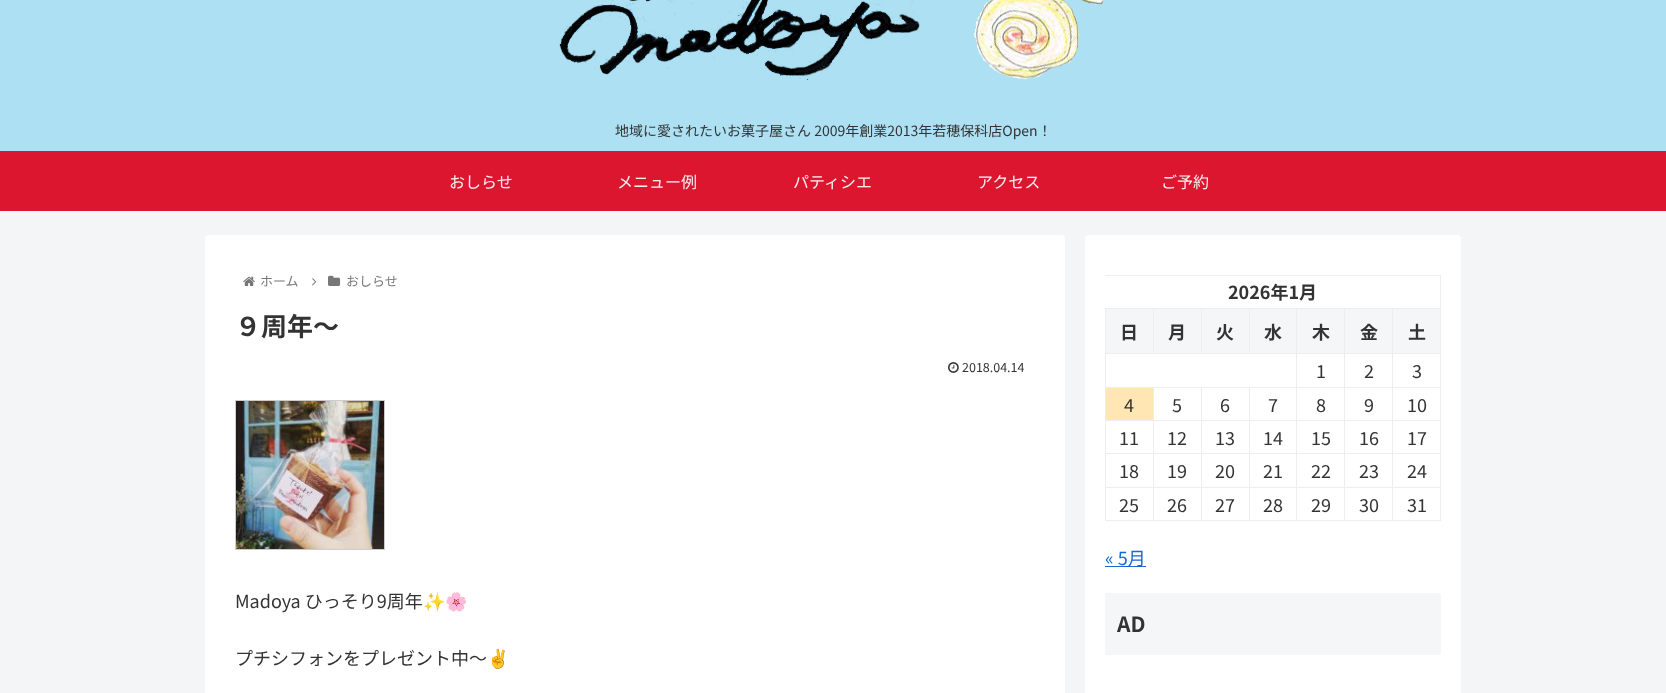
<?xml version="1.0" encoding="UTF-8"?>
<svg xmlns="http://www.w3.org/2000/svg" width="1666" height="693">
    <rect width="100%" height="100%" fill="#F4F5F7"/>
    <rect x="0" y="0" width="1666" height="151" fill="#ADE0F2"/>
    <image x="558" y="0" width="549" height="86" href="img_01.png"/>
    <text x="615" y="136" font-family="Noto Sans JP" font-size="14" fill="#333333">地域に愛されたいお菓子屋さん 2009年創業2013年若穂保科店Open！</text>
    <rect x="0" y="151" width="1666" height="60" fill="#DD1630"/>
    <text x="449" y="188" font-family="Noto Sans JP" font-size="16" fill="#F2F2F2">おしらせ</text>
    <text x="617" y="188" font-family="Noto Sans JP" font-size="16" fill="#F2F2F2">メニュー例</text>
    <text x="793" y="188" font-family="Noto Sans JP" font-size="16" fill="#F2F2F2">パティシエ</text>
    <text x="977" y="188" font-family="Noto Sans JP" font-size="16" fill="#F2F2F2">アクセス</text>
    <text x="1161" y="188" font-family="Noto Sans JP" font-size="16" fill="#F2F2F2">ご予約</text>
    <rect x="205" y="235" width="860" height="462" rx="4" fill="#FFFFFF"/>
    <image x="243" y="276" width="12" height="10" href="img_02.png"/>
    <text x="260" y="286" font-family="Noto Sans JP" font-size="13" fill="#777777">ホーム</text>
    <image x="312" y="278" width="5" height="8" href="img_03.png"/>
    <image x="328" y="275" width="13" height="11" href="img_04.png"/>
    <text x="346" y="286" font-family="Noto Sans JP" font-size="13" fill="#777777">おしらせ</text>
    <text x="235" y="336" font-family="Noto Sans JP" font-size="26" font-weight="700" fill="#333333">９周年～</text>
    <image x="948" y="362" width="11" height="11" href="img_05.png"/>
    <text x="962" y="372" font-family="Noto Sans JP" font-size="12.5" fill="#333333">2018.04.14</text>
    <rect x="235.5" y="400.5" width="149" height="149" fill="none" stroke="#CCCCCC"/>
    <image x="236" y="401" width="148" height="148" href="img_06.png"/>
    <text x="235" y="608" font-family="Noto Sans JP" font-size="18" fill="#333333">Madoya ひっそり9周年</text>
    <text x="423" y="608" font-family="Noto Color Emoji" font-size="18" fill="#333333">✨🌸</text>
    <text x="235" y="665" font-family="Noto Sans JP" font-size="18" fill="#333333">プチシフォンをプレゼント中～</text>
    <text x="487" y="665" font-family="Noto Color Emoji" font-size="18" fill="#333333">✌</text>
    <rect x="1085" y="235" width="376" height="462" rx="4" fill="#FFFFFF"/>
    <rect x="1105" y="275" width="336" height="1" fill="#EEEEEE"/>
    <rect x="1440" y="275" width="1" height="246" fill="#EEEEEE"/>
    <text x="1228" y="299" font-family="Noto Sans JP" font-size="18" font-weight="700" fill="#333333">2026年1月</text>
    <rect x="1106" y="309" width="47" height="44" fill="#F5F6F7"/>
    <rect x="1392" y="308" width="49" height="1" fill="#EEEEEE"/>
    <rect x="1392" y="353" width="49" height="1" fill="#EEEEEE"/>
    <rect x="1392" y="387" width="49" height="1" fill="#EEEEEE"/>
    <rect x="1392" y="420" width="49" height="1" fill="#EEEEEE"/>
    <rect x="1392" y="453" width="49" height="1" fill="#EEEEEE"/>
    <rect x="1392" y="487" width="49" height="1" fill="#EEEEEE"/>
    <rect x="1392" y="520" width="49" height="1" fill="#EEEEEE"/>
    <rect x="1392" y="487" width="1" height="34" fill="#EEEEEE"/>
    <rect x="1344" y="487" width="49" height="1" fill="#EEEEEE"/>
    <rect x="1392" y="453" width="1" height="35" fill="#EEEEEE"/>
    <rect x="1344" y="453" width="49" height="1" fill="#EEEEEE"/>
    <rect x="1392" y="420" width="1" height="34" fill="#EEEEEE"/>
    <rect x="1344" y="420" width="49" height="1" fill="#EEEEEE"/>
    <rect x="1392" y="387" width="1" height="34" fill="#EEEEEE"/>
    <rect x="1344" y="387" width="49" height="1" fill="#EEEEEE"/>
    <rect x="1392" y="353" width="1" height="35" fill="#EEEEEE"/>
    <rect x="1344" y="353" width="49" height="1" fill="#EEEEEE"/>
    <rect x="1392" y="308" width="1" height="46" fill="#EEEEEE"/>
    <rect x="1344" y="308" width="49" height="1" fill="#EEEEEE"/>
    <rect x="1344" y="520" width="49" height="1" fill="#EEEEEE"/>
    <rect x="1344" y="487" width="1" height="34" fill="#EEEEEE"/>
    <rect x="1296" y="487" width="49" height="1" fill="#EEEEEE"/>
    <rect x="1344" y="453" width="1" height="35" fill="#EEEEEE"/>
    <rect x="1296" y="453" width="49" height="1" fill="#EEEEEE"/>
    <rect x="1344" y="420" width="1" height="34" fill="#EEEEEE"/>
    <rect x="1296" y="420" width="49" height="1" fill="#EEEEEE"/>
    <rect x="1344" y="387" width="1" height="34" fill="#EEEEEE"/>
    <rect x="1296" y="387" width="49" height="1" fill="#EEEEEE"/>
    <rect x="1344" y="353" width="1" height="35" fill="#EEEEEE"/>
    <rect x="1296" y="353" width="49" height="1" fill="#EEEEEE"/>
    <rect x="1344" y="308" width="1" height="46" fill="#EEEEEE"/>
    <rect x="1296" y="308" width="49" height="1" fill="#EEEEEE"/>
    <rect x="1296" y="520" width="49" height="1" fill="#EEEEEE"/>
    <rect x="1296" y="487" width="1" height="34" fill="#EEEEEE"/>
    <rect x="1249" y="487" width="48" height="1" fill="#EEEEEE"/>
    <rect x="1296" y="453" width="1" height="35" fill="#EEEEEE"/>
    <rect x="1249" y="453" width="48" height="1" fill="#EEEEEE"/>
    <rect x="1296" y="420" width="1" height="34" fill="#EEEEEE"/>
    <rect x="1249" y="420" width="48" height="1" fill="#EEEEEE"/>
    <rect x="1296" y="387" width="1" height="34" fill="#EEEEEE"/>
    <rect x="1249" y="387" width="48" height="1" fill="#EEEEEE"/>
    <rect x="1296" y="353" width="1" height="35" fill="#EEEEEE"/>
    <rect x="1105" y="353" width="192" height="1" fill="#EEEEEE"/>
    <rect x="1296" y="308" width="1" height="46" fill="#EEEEEE"/>
    <rect x="1249" y="308" width="48" height="1" fill="#EEEEEE"/>
    <rect x="1249" y="308" width="1" height="46" fill="#EEEEEE"/>
    <rect x="1201" y="308" width="49" height="1" fill="#EEEEEE"/>
    <rect x="1201" y="308" width="1" height="46" fill="#EEEEEE"/>
    <rect x="1153" y="308" width="49" height="1" fill="#EEEEEE"/>
    <rect x="1153" y="308" width="1" height="46" fill="#EEEEEE"/>
    <rect x="1105" y="308" width="49" height="1" fill="#EEEEEE"/>
    <rect x="1249" y="520" width="48" height="1" fill="#EEEEEE"/>
    <rect x="1249" y="487" width="1" height="34" fill="#EEEEEE"/>
    <rect x="1201" y="487" width="49" height="1" fill="#EEEEEE"/>
    <rect x="1249" y="453" width="1" height="35" fill="#EEEEEE"/>
    <rect x="1201" y="453" width="49" height="1" fill="#EEEEEE"/>
    <rect x="1249" y="420" width="1" height="34" fill="#EEEEEE"/>
    <rect x="1201" y="420" width="49" height="1" fill="#EEEEEE"/>
    <rect x="1249" y="387" width="1" height="34" fill="#EEEEEE"/>
    <rect x="1201" y="387" width="49" height="1" fill="#EEEEEE"/>
    <rect x="1201" y="520" width="49" height="1" fill="#EEEEEE"/>
    <rect x="1201" y="487" width="1" height="34" fill="#EEEEEE"/>
    <rect x="1153" y="487" width="49" height="1" fill="#EEEEEE"/>
    <rect x="1201" y="453" width="1" height="35" fill="#EEEEEE"/>
    <rect x="1153" y="453" width="49" height="1" fill="#EEEEEE"/>
    <rect x="1201" y="420" width="1" height="34" fill="#EEEEEE"/>
    <rect x="1153" y="420" width="49" height="1" fill="#EEEEEE"/>
    <rect x="1201" y="387" width="1" height="34" fill="#EEEEEE"/>
    <rect x="1153" y="387" width="49" height="1" fill="#EEEEEE"/>
    <rect x="1153" y="520" width="49" height="1" fill="#EEEEEE"/>
    <rect x="1153" y="487" width="1" height="34" fill="#EEEEEE"/>
    <rect x="1105" y="487" width="49" height="1" fill="#EEEEEE"/>
    <rect x="1153" y="453" width="1" height="35" fill="#EEEEEE"/>
    <rect x="1105" y="453" width="49" height="1" fill="#EEEEEE"/>
    <rect x="1153" y="420" width="1" height="34" fill="#EEEEEE"/>
    <rect x="1105" y="420" width="49" height="1" fill="#EEEEEE"/>
    <rect x="1153" y="387" width="1" height="34" fill="#EEEEEE"/>
    <rect x="1105" y="387" width="49" height="1" fill="#EEEEEE"/>
    <rect x="1105" y="520" width="49" height="1" fill="#EEEEEE"/>
    <rect x="1105" y="487" width="1" height="34" fill="#EEEEEE"/>
    <rect x="1105" y="453" width="1" height="35" fill="#EEEEEE"/>
    <rect x="1105" y="420" width="1" height="34" fill="#EEEEEE"/>
    <rect x="1105" y="387" width="1" height="34" fill="#EEEEEE"/>
    <rect x="1105" y="353" width="1" height="35" fill="#EEEEEE"/>
    <rect x="1105" y="308" width="1" height="46" fill="#EEEEEE"/>
    <text x="1120" y="339" font-family="Noto Sans JP" font-size="18" font-weight="700" fill="#333333">日</text>
    <rect x="1154" y="309" width="47" height="44" fill="#F5F6F7"/>
    <text x="1168" y="339" font-family="Noto Sans JP" font-size="18" font-weight="700" fill="#333333">月</text>
    <rect x="1202" y="309" width="47" height="44" fill="#F5F6F7"/>
    <text x="1216" y="339" font-family="Noto Sans JP" font-size="18" font-weight="700" fill="#333333">火</text>
    <rect x="1250" y="309" width="46" height="44" fill="#F5F6F7"/>
    <text x="1264" y="339" font-family="Noto Sans JP" font-size="18" font-weight="700" fill="#333333">水</text>
    <rect x="1297" y="309" width="47" height="44" fill="#F5F6F7"/>
    <text x="1312" y="339" font-family="Noto Sans JP" font-size="18" font-weight="700" fill="#333333">木</text>
    <rect x="1345" y="309" width="47" height="44" fill="#F5F6F7"/>
    <text x="1360" y="339" font-family="Noto Sans JP" font-size="18" font-weight="700" fill="#333333">金</text>
    <rect x="1393" y="309" width="47" height="44" fill="#F5F6F7"/>
    <text x="1408" y="339" font-family="Noto Sans JP" font-size="18" font-weight="700" fill="#333333">土</text>
    <text x="1316" y="378" font-family="Noto Sans JP" font-size="18" fill="#333333">1</text>
    <text x="1364" y="378" font-family="Noto Sans JP" font-size="18" fill="#333333">2</text>
    <text x="1412" y="378" font-family="Noto Sans JP" font-size="18" fill="#333333">3</text>
    <rect x="1106" y="388" width="47" height="32" fill="#FFE6B2"/>
    <text x="1124" y="412" font-family="Noto Sans JP" font-size="18" fill="#333333">4</text>
    <text x="1172" y="412" font-family="Noto Sans JP" font-size="18" fill="#333333">5</text>
    <text x="1220" y="412" font-family="Noto Sans JP" font-size="18" fill="#333333">6</text>
    <text x="1268" y="412" font-family="Noto Sans JP" font-size="18" fill="#333333">7</text>
    <text x="1316" y="412" font-family="Noto Sans JP" font-size="18" fill="#333333">8</text>
    <text x="1364" y="412" font-family="Noto Sans JP" font-size="18" fill="#333333">9</text>
    <text x="1407" y="412" font-family="Noto Sans JP" font-size="18" fill="#333333">10</text>
    <text x="1119" y="445" font-family="Noto Sans JP" font-size="18" fill="#333333">11</text>
    <text x="1167" y="445" font-family="Noto Sans JP" font-size="18" fill="#333333">12</text>
    <text x="1215" y="445" font-family="Noto Sans JP" font-size="18" fill="#333333">13</text>
    <text x="1263" y="445" font-family="Noto Sans JP" font-size="18" fill="#333333">14</text>
    <text x="1311" y="445" font-family="Noto Sans JP" font-size="18" fill="#333333">15</text>
    <text x="1359" y="445" font-family="Noto Sans JP" font-size="18" fill="#333333">16</text>
    <text x="1407" y="445" font-family="Noto Sans JP" font-size="18" fill="#333333">17</text>
    <text x="1119" y="478" font-family="Noto Sans JP" font-size="18" fill="#333333">18</text>
    <text x="1167" y="478" font-family="Noto Sans JP" font-size="18" fill="#333333">19</text>
    <text x="1215" y="478" font-family="Noto Sans JP" font-size="18" fill="#333333">20</text>
    <text x="1263" y="478" font-family="Noto Sans JP" font-size="18" fill="#333333">21</text>
    <text x="1311" y="478" font-family="Noto Sans JP" font-size="18" fill="#333333">22</text>
    <text x="1359" y="478" font-family="Noto Sans JP" font-size="18" fill="#333333">23</text>
    <text x="1407" y="478" font-family="Noto Sans JP" font-size="18" fill="#333333">24</text>
    <text x="1119" y="512" font-family="Noto Sans JP" font-size="18" fill="#333333">25</text>
    <text x="1167" y="512" font-family="Noto Sans JP" font-size="18" fill="#333333">26</text>
    <text x="1215" y="512" font-family="Noto Sans JP" font-size="18" fill="#333333">27</text>
    <text x="1263" y="512" font-family="Noto Sans JP" font-size="18" fill="#333333">28</text>
    <text x="1311" y="512" font-family="Noto Sans JP" font-size="18" fill="#333333">29</text>
    <text x="1359" y="512" font-family="Noto Sans JP" font-size="18" fill="#333333">30</text>
    <text x="1407" y="512" font-family="Noto Sans JP" font-size="18" fill="#333333">31</text>
    <rect x="1105" y="566" width="41" height="1" fill="#1967D2"/>
    <text x="1105" y="565" font-family="Noto Sans JP" font-size="18" fill="#1967D2">« 5月</text>
    <rect x="1105" y="593" width="336" height="62" rx="2" fill="#F5F6F7"/>
    <text x="1117" y="632" font-family="Noto Sans JP" font-size="21" font-weight="700" fill="#333333">AD</text>
</svg>
